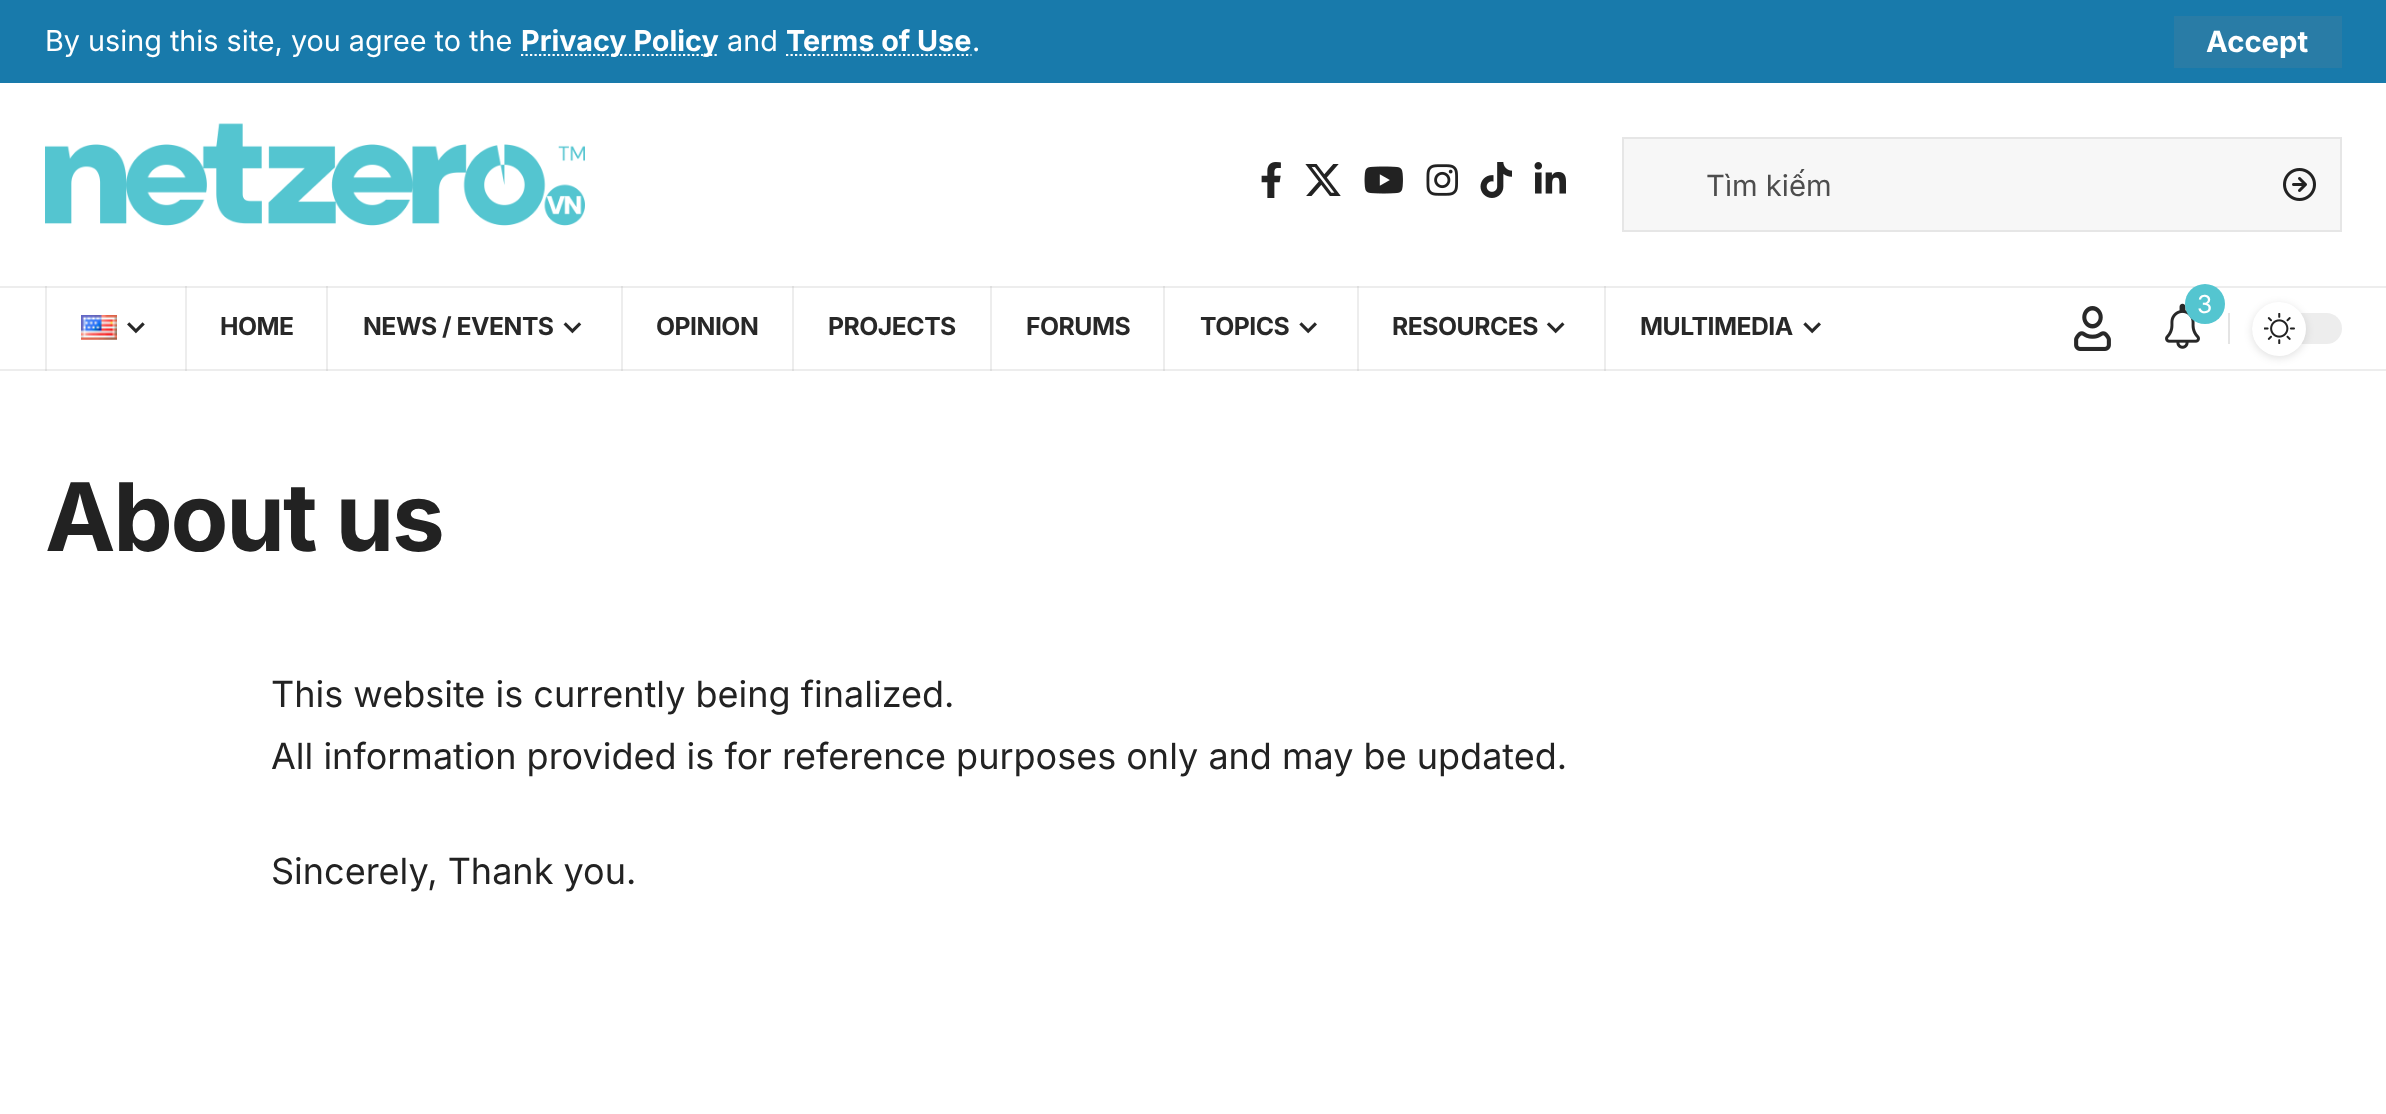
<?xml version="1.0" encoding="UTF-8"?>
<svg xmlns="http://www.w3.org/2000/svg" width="2386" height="1114">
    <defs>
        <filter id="blur1" x="-50%" y="-200%" width="200%" height="500%"><feGaussianBlur stdDeviation="4.5"/></filter>
    </defs>
    <rect width="100%" height="100%" fill="#FFFFFF"/>
    <rect x="0" y="369" width="2386" height="2" fill="#EDEDED"/>
    <rect x="1604" y="286" width="2" height="85" fill="#EDEDED"/>
    <rect x="1604" y="369" width="2" height="2" fill="#DEDEDE"/>
    <rect x="1357" y="286" width="2" height="85" fill="#EDEDED"/>
    <rect x="1357" y="369" width="2" height="2" fill="#DEDEDE"/>
    <rect x="1163" y="286" width="2" height="85" fill="#EDEDED"/>
    <rect x="1163" y="369" width="2" height="2" fill="#DEDEDE"/>
    <rect x="990" y="286" width="2" height="85" fill="#EDEDED"/>
    <rect x="990" y="369" width="2" height="2" fill="#DEDEDE"/>
    <rect x="792" y="286" width="2" height="85" fill="#EDEDED"/>
    <rect x="792" y="369" width="2" height="2" fill="#DEDEDE"/>
    <rect x="621" y="286" width="2" height="85" fill="#EDEDED"/>
    <rect x="621" y="369" width="2" height="2" fill="#DEDEDE"/>
    <rect x="326" y="286" width="2" height="85" fill="#EDEDED"/>
    <rect x="326" y="369" width="2" height="2" fill="#DEDEDE"/>
    <rect x="185" y="286" width="2" height="85" fill="#EDEDED"/>
    <rect x="185" y="369" width="2" height="2" fill="#DEDEDE"/>
    <rect x="45" y="286" width="2" height="85" fill="#EDEDED"/>
    <rect x="45" y="369" width="2" height="2" fill="#DEDEDE"/>
    <rect x="0" y="0" width="2386" height="83" fill="#187AAB"/>
    <text x="45" y="51" font-family="Inter" font-size="28.75" fill="#FFFFFF">By using this site, you agree to the</text>
    <path d="M 521 55 H 719" fill="none" stroke="#FFFFFF" stroke-width="2.2" stroke-dasharray="2.25 2.25"/>
    <text x="521" y="51" font-family="Inter" font-size="28.75" font-weight="700" fill="#FFFFFF">Privacy Policy</text>
    <text x="727" y="51" font-family="Inter" font-size="28.75" fill="#FFFFFF">and</text>
    <text x="786" y="51" font-family="Inter" font-size="28.75" font-weight="700" fill="#FFFFFF">Terms of Use</text>
    <path d="M 786 55 H 971.5" fill="none" stroke="#FFFFFF" stroke-width="2.2" stroke-dasharray="2.25 2.25"/>
    <text x="972" y="51" font-family="Inter" font-size="28.75" fill="#FFFFFF">.</text>
    <rect x="2174" y="16" width="168" height="52" fill="#297CA6"/>
    <text x="2206" y="52" font-family="Inter" font-size="29.25" font-weight="700" fill="#FFFFFF">Accept</text>
    <image x="45" y="123" width="540" height="103" href="img_01.png"/>
    <image x="1261" y="162" width="20" height="36" href="img_02.png"/>
    <image x="1305" y="164" width="36" height="32" href="img_03.png"/>
    <image x="1364" y="166" width="39" height="28" href="img_04.png"/>
    <image x="1426" y="164" width="32" height="32" href="img_05.png"/>
    <image x="1480" y="162" width="32" height="36" href="img_06.png"/>
    <image x="1534" y="162" width="32" height="32" href="img_07.png"/>
    <rect x="1623" y="138" width="718" height="93" fill="#F7F7F7" stroke="#E6E6E6" stroke-width="2"/>
    <text x="1706" y="196" font-family="Inter" font-size="29.25" fill="#4D4D4D">Tìm kiếm</text>
    <image x="2283" y="168" width="33" height="33" href="img_08.png"/>
    <rect x="0" y="286" width="2386" height="2" fill="#EDEDED"/>
    <rect x="1604" y="286" width="2" height="2" fill="#DEDEDE"/>
    <rect x="1357" y="286" width="2" height="2" fill="#DEDEDE"/>
    <rect x="1163" y="286" width="2" height="2" fill="#DEDEDE"/>
    <rect x="990" y="286" width="2" height="2" fill="#DEDEDE"/>
    <rect x="792" y="286" width="2" height="2" fill="#DEDEDE"/>
    <rect x="621" y="286" width="2" height="2" fill="#DEDEDE"/>
    <rect x="326" y="286" width="2" height="2" fill="#DEDEDE"/>
    <rect x="185" y="286" width="2" height="2" fill="#DEDEDE"/>
    <rect x="45" y="286" width="2" height="2" fill="#DEDEDE"/>
    <image x="2165" y="303" width="35" height="46" href="img_09.png"/>
    <circle cx="2205" cy="304" r="20" fill="#54C5D0"/>
    <text x="2197" y="313" font-family="Inter" font-size="24.75" fill="#FFFFFF">3</text>
    <rect x="2228" y="313" width="2" height="31" fill="#E4E4E4"/>
    <rect x="2252" y="313" width="90" height="31" rx="15.5" fill="#EDEDED"/>
    <rect x="2252" y="304" width="54" height="54" rx="27" fill="#000000" fill-opacity="0.12" filter="url(#blur1)"/>
    <circle cx="2279" cy="329" r="27" fill="#FFFFFF"/>
    <image x="2264" y="313" width="31" height="31" href="img_10.png"/>
    <image x="2074" y="306" width="37" height="45" href="img_11.png"/>
    <image x="81" y="315" width="36" height="25" href="img_12.png"/>
    <image x="127" y="322" width="18" height="12" href="img_13.png"/>
    <text x="220" y="335" font-family="Inter" font-size="24.75" font-weight="700" letter-spacing="-0.5" fill="#282828">HOME</text>
    <text x="363" y="335" font-family="Inter" font-size="24.75" font-weight="700" letter-spacing="-0.5" fill="#282828">NEWS / EVENTS</text>
    <image x="563" y="322" width="19" height="12" href="img_14.png"/>
    <text x="656" y="335" font-family="Inter" font-size="24.75" font-weight="700" letter-spacing="-0.5" fill="#282828">OPINION</text>
    <text x="828" y="335" font-family="Inter" font-size="24.75" font-weight="700" letter-spacing="-0.5" fill="#282828">PROJECTS</text>
    <text x="1026" y="335" font-family="Inter" font-size="24.75" font-weight="700" letter-spacing="-0.5" fill="#282828">FORUMS</text>
    <text x="1200" y="335" font-family="Inter" font-size="24.75" font-weight="700" letter-spacing="-0.5" fill="#282828">TOPICS</text>
    <image x="1299" y="322" width="18" height="12" href="img_15.png"/>
    <text x="1392" y="335" font-family="Inter" font-size="24.75" font-weight="700" letter-spacing="-0.5" fill="#282828">RESOURCES</text>
    <image x="1546" y="322" width="19" height="12" href="img_16.png"/>
    <text x="1640" y="335" font-family="Inter" font-size="24.75" font-weight="700" letter-spacing="-0.5" fill="#282828">MULTIMEDIA</text>
    <image x="1803" y="322" width="18" height="12" href="img_15.png"/>
    <text x="45" y="551" font-family="Inter" font-size="94.5" font-weight="700" letter-spacing="-2.25" fill="#222222">About us</text>
    <text font-family="Inter" font-size="36" fill="#222222">
        <tspan x="271" y="707">This website is currently being finalized.</tspan>
        <tspan x="271" y="769">All information provided is for reference purposes only and may be updated.</tspan>
    </text>
    <text x="271" y="884" font-family="Inter" font-size="36" fill="#222222">Sincerely, Thank you.</text>
</svg>
